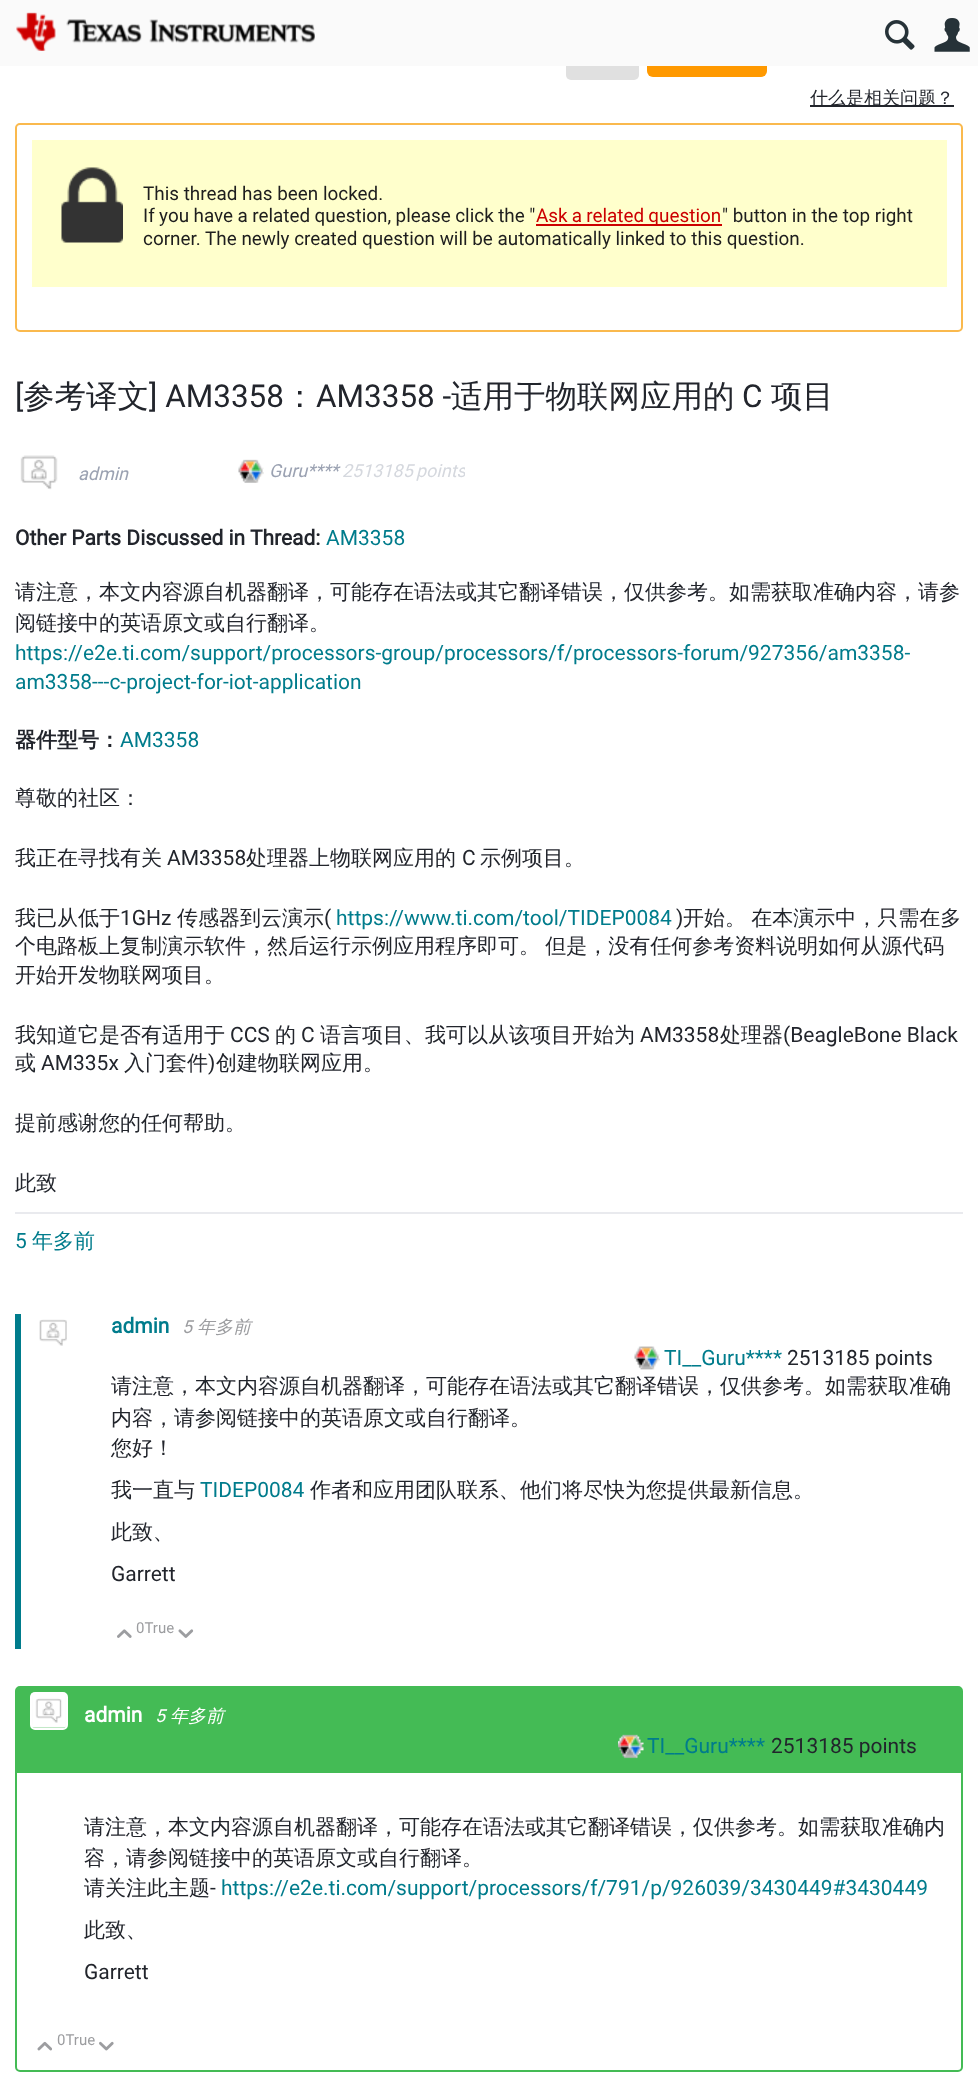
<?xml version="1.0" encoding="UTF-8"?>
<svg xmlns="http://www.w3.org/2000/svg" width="978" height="2081">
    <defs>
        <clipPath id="clip1"><rect x="15" y="449" width="450" height="48"/></clipPath>
    </defs>
    <rect width="100%" height="100%" fill="#FFFFFF"/>
    <rect x="566" y="14" width="73" height="66" rx="5" fill="#E0E0E0"/>
    <rect x="647" y="21" width="120" height="56" rx="6" fill="#FF9900"/>
    <rect x="0" y="0" width="978" height="66" fill="#FAFAFA"/>
    <image x="16" y="12" width="299" height="39" href="img_01.png"/>
    <image x="885" y="20" width="30" height="30" href="img_02.png"/>
    <image x="934" y="18" width="36" height="34" href="img_03.png"/>
    <rect x="810" y="105" width="144" height="2" fill="#22252C"/>
    <text x="810" y="104" font-family="WenQuanYi Zen Hei" font-size="18" font-weight="500" fill="#22252C">什么是相关问题？</text>
    <rect x="16" y="124" width="946" height="207" rx="4" fill="none" stroke="#FAB94D" stroke-width="2"/>
    <rect x="32" y="140" width="915" height="147" fill="#FFFFCC"/>
    <image x="61" y="167" width="62" height="76" href="img_04.png"/>
    <text font-family="Roboto" font-size="18.9" fill="#1E1E1E">
        <tspan x="143" y="200">This thread has been locked.</tspan>
        <tspan x="143" y="222" word-spacing="-0.25">If you have a related question, please click the "</tspan>
    </text>
    <rect x="536" y="224" width="186" height="2" fill="#CC0000"/>
    <text x="536" y="222" word-spacing="-0.5" font-family="Roboto" font-size="18.9" fill="#CC0000">Ask a related question</text>
    <text x="722" y="222" font-family="Roboto" font-size="18.9" fill="#1E1E1E">" button in the top right</text>
    <text x="143" y="245" font-family="Roboto" font-size="18.9" fill="#1E1E1E">corner. The newly created question will be automatically linked to this question.</text>
    <text x="15" y="407" font-family="Roboto" font-size="31.5" fill="#22252C">[</text>
    <text x="23" y="407" font-family="WenQuanYi Zen Hei" font-size="31.5" font-weight="500" fill="#22252C">参考译文</text>
    <text x="149" y="407" font-family="Roboto" font-size="31.5" fill="#22252C">] AM3358</text>
    <text x="284" y="407" font-family="WenQuanYi Zen Hei" font-size="31.5" font-weight="500" fill="#22252C">：</text>
    <text x="316" y="407" font-family="Roboto" font-size="31.5" fill="#22252C">AM3358 -</text>
    <text x="451" y="407" font-family="WenQuanYi Zen Hei" font-size="31.5" font-weight="500" fill="#22252C">适用于物联网应用的</text>
    <text x="742" y="407" font-family="Roboto" font-size="31.5" fill="#22252C">C</text>
    <text x="771" y="407" font-family="WenQuanYi Zen Hei" font-size="31.5" font-weight="500" fill="#22252C">项目</text>
    <image x="20" y="455" width="38" height="35" href="img_05.png"/>
    <text x="78" y="480" font-family="Roboto" font-size="18" font-style="italic" fill="#9BA2B2">admin</text>
    <image x="238" y="459" width="26" height="24" href="img_06.png"/>
    <text x="269" y="477" font-family="Roboto" font-size="18" font-style="italic" fill="#9BA2B2">Guru****</text>
    <text x="342" y="477" font-family="Roboto" font-size="18" font-style="italic" fill="#D5D8DE">2513185</text>
    <g clip-path="url(#clip1)">
        <text x="416" y="477" font-family="Roboto" font-size="18" font-style="italic" fill="#D5D8DE">points</text>
    </g>
    <rect x="15" y="1212" width="948" height="2" fill="#E9EAEE"/>
    <text x="15" y="545" font-family="Roboto" font-size="21" font-weight="700" fill="#22252C">Other Parts Discussed in Thread:</text>
    <text x="326" y="545" font-family="Roboto" font-size="21" fill="#007C8C">AM3358</text>
    <text font-family="WenQuanYi Zen Hei" font-size="21" font-weight="500" fill="#22252C">
        <tspan x="15" y="599">请注意，本文内容源自机器翻译，可能存在语法或其它翻译错误，仅供参考。如需获取准确内容，请参</tspan>
        <tspan x="15" y="630">阅链接中的英语原文或自行翻译。</tspan>
    </text>
    <text font-family="Roboto" font-size="21" fill="#007C8C">
        <tspan x="15" y="660">https://e2e.ti.com/support/processors-group/processors/f/processors-forum/927356/am3358-</tspan>
        <tspan x="15" y="689">am3358---c-project-for-iot-application</tspan>
    </text>
    <text x="15" y="747" font-family="WenQuanYi Zen Hei" font-size="21" font-weight="700" fill="#22252C">器件型号：</text>
    <text x="120" y="747" font-family="Roboto" font-size="21" fill="#007C8C">AM3358</text>
    <text x="15" y="805" font-family="WenQuanYi Zen Hei" font-size="21" font-weight="500" fill="#22252C">尊敬的社区：</text>
    <text x="15" y="865" font-family="WenQuanYi Zen Hei" font-size="21" font-weight="500" fill="#22252C">我正在寻找有关</text>
    <text x="167" y="865" font-family="Roboto" font-size="21" fill="#22252C">AM3358</text>
    <text x="246" y="865" font-family="WenQuanYi Zen Hei" font-size="21" font-weight="500" fill="#22252C">处理器上物联网应用的</text>
    <text x="462" y="865" font-family="Roboto" font-size="21" fill="#22252C">C</text>
    <text x="480" y="865" font-family="WenQuanYi Zen Hei" font-size="21" font-weight="500" fill="#22252C">示例项目。</text>
    <text x="15" y="925" font-family="WenQuanYi Zen Hei" font-size="21" font-weight="500" fill="#22252C">我已从低于</text>
    <text x="120" y="925" font-family="Roboto" font-size="21" fill="#22252C">1GHz</text>
    <text x="177" y="925" font-family="WenQuanYi Zen Hei" font-size="21" font-weight="500" fill="#22252C">传感器到云演示</text>
    <text x="324" y="925" font-family="Roboto" font-size="21" fill="#22252C">(</text>
    <text x="336" y="925" font-family="Roboto" font-size="21" fill="#007C8C">https://www.ti.com/tool/TIDEP0084</text>
    <text x="676" y="925" font-family="Roboto" font-size="21" fill="#22252C">)</text>
    <text x="683" y="925" word-spacing="-1" font-family="WenQuanYi Zen Hei" font-size="21" font-weight="500" fill="#22252C">开始。 在本演示中，只需在多</text>
    <text font-family="WenQuanYi Zen Hei" font-size="21" font-weight="500" fill="#22252C">
        <tspan x="15" y="953" word-spacing="-1">个电路板上复制演示软件，然后运行示例应用程序即可。 但是，没有任何参考资料说明如何从源代码</tspan>
        <tspan x="15" y="982">开始开发物联网项目。</tspan>
    </text>
    <text x="15" y="1042" font-family="WenQuanYi Zen Hei" font-size="21" font-weight="500" fill="#22252C">我知道它是否有适用于</text>
    <text x="230" y="1042" font-family="Roboto" font-size="21" fill="#22252C">CCS</text>
    <text x="275" y="1042" font-family="WenQuanYi Zen Hei" font-size="21" font-weight="500" fill="#22252C">的</text>
    <text x="301" y="1042" font-family="Roboto" font-size="21" fill="#22252C">C</text>
    <text x="320" y="1042" font-family="WenQuanYi Zen Hei" font-size="21" font-weight="500" fill="#22252C">语言项目、我可以从该项目开始为</text>
    <text x="640" y="1042" font-family="Roboto" font-size="21" fill="#22252C">AM3358</text>
    <text x="720" y="1042" font-family="WenQuanYi Zen Hei" font-size="21" font-weight="500" fill="#22252C">处理器</text>
    <text x="783" y="1042" font-family="Roboto" font-size="21" fill="#22252C">(BeagleBone Black</text>
    <text x="15" y="1070" font-family="WenQuanYi Zen Hei" font-size="21" font-weight="500" fill="#22252C">或</text>
    <text x="41" y="1070" font-family="Roboto" font-size="21" fill="#22252C">AM335x</text>
    <text x="124" y="1070" font-family="WenQuanYi Zen Hei" font-size="21" font-weight="500" fill="#22252C">入门套件</text>
    <text x="208" y="1070" font-family="Roboto" font-size="21" fill="#22252C">)</text>
    <text x="216" y="1070" font-family="WenQuanYi Zen Hei" font-size="21" font-weight="500" fill="#22252C">创建物联网应用。</text>
    <text x="15" y="1130" font-family="WenQuanYi Zen Hei" font-size="21" font-weight="500" fill="#22252C">提前感谢您的任何帮助。</text>
    <text x="15" y="1190" font-family="WenQuanYi Zen Hei" font-size="21" font-weight="500" fill="#22252C">此致</text>
    <text x="15" y="1248" font-family="Roboto" font-size="21" fill="#007C8C">5</text>
    <text x="32" y="1248" font-family="WenQuanYi Zen Hei" font-size="21" font-weight="500" fill="#007C8C">年多前</text>
    <rect x="15" y="1314" width="6" height="335" fill="#007C8C"/>
    <image x="39" y="1319" width="28" height="27" href="img_07.png"/>
    <text x="111" y="1333" font-family="Roboto" font-size="21" font-weight="700" fill="#007C8C">admin</text>
    <text x="182" y="1333" font-family="Roboto" font-size="18" font-style="italic" fill="#9C9DA0">5</text>
    <text x="197" y="1333" font-family="WenQuanYi Zen Hei" font-size="18" font-weight="500" font-style="italic" fill="#9C9DA0">年多前</text>
    <image x="634" y="1346" width="26" height="24" href="img_08.png"/>
    <text x="664" y="1365" font-family="Roboto" font-size="21" fill="#007C8C">TI__Guru****</text>
    <text x="787" y="1365" font-family="Roboto" font-size="21" fill="#22252C">2513185 points</text>
    <text font-family="WenQuanYi Zen Hei" font-size="21" font-weight="500" fill="#22252C">
        <tspan x="111" y="1393">请注意，本文内容源自机器翻译，可能存在语法或其它翻译错误，仅供参考。如需获取准确</tspan>
        <tspan x="111" y="1425">内容，请参阅链接中的英语原文或自行翻译。</tspan>
        <tspan x="111" y="1455">您好！</tspan>
    </text>
    <text x="111" y="1497" font-family="WenQuanYi Zen Hei" font-size="21" font-weight="500" fill="#22252C">我一直与</text>
    <text x="200" y="1497" font-family="Roboto" font-size="21" fill="#007C8C">TIDEP0084</text>
    <text x="310" y="1497" font-family="WenQuanYi Zen Hei" font-size="21" font-weight="500" fill="#22252C">作者和应用团队联系、他们将尽快为您提供最新信息。</text>
    <text x="111" y="1539" font-family="WenQuanYi Zen Hei" font-size="21" font-weight="500" fill="#22252C">此致、</text>
    <text x="111" y="1581" font-family="Roboto" font-size="21" fill="#22252C">Garrett</text>
    <image x="117" y="1629" width="15" height="9" href="img_09.png"/>
    <text x="136" y="1633" font-family="Roboto" font-size="15" fill="#9C9DA0">0True</text>
    <image x="178" y="1629" width="16" height="9" href="img_10.png"/>
    <rect x="16" y="1687" width="946" height="384" rx="4" fill="none" stroke="#44BB55" stroke-width="2"/>
    <rect x="17" y="1688" width="944" height="85" fill="#44BB55"/>
    <image x="31" y="1693" width="35" height="35" href="img_11.png"/>
    <rect x="31" y="1693" width="36" height="36" rx="4" fill="none" stroke="#FFFFFF" stroke-width="2"/>
    <image x="33" y="1727" width="31" height="1" href="img_12.png"/>
    <text x="84" y="1722" font-family="Roboto" font-size="21" font-weight="700" fill="#FFFFFF">admin</text>
    <text x="155" y="1722" font-family="Roboto" font-size="18" font-style="italic" fill="#FFFFFF">5</text>
    <text x="170" y="1722" font-family="WenQuanYi Zen Hei" font-size="18" font-weight="500" font-style="italic" fill="#FFFFFF">年多前</text>
    <image x="618" y="1734" width="26" height="25" href="img_13.png"/>
    <text x="647" y="1753" font-family="Roboto" font-size="21" fill="#007C8C">TI__Guru****</text>
    <text x="771" y="1753" font-family="Roboto" font-size="21" fill="#22252C">2513185 points</text>
    <text font-family="WenQuanYi Zen Hei" font-size="21" font-weight="500" fill="#22252C">
        <tspan x="84" y="1834">请注意，本文内容源自机器翻译，可能存在语法或其它翻译错误，仅供参考。如需获取准确内</tspan>
        <tspan x="84" y="1865">容，请参阅链接中的英语原文或自行翻译。</tspan>
        <tspan x="84" y="1895">请关注此主题</tspan>
    </text>
    <text x="210" y="1895" font-family="Roboto" font-size="21" fill="#22252C">-</text>
    <text x="221" y="1895" font-family="Roboto" font-size="21" fill="#007C8C">https://e2e.ti.com/support/processors/f/791/p/926039/3430449#3430449</text>
    <text x="84" y="1937" font-family="WenQuanYi Zen Hei" font-size="21" font-weight="500" fill="#22252C">此致、</text>
    <text x="84" y="1979" font-family="Roboto" font-size="21" fill="#22252C">Garrett</text>
    <image x="37" y="2041" width="15" height="10" href="img_14.png"/>
    <text x="57" y="2045" font-family="Roboto" font-size="15" fill="#9C9DA0">0True</text>
    <image x="99" y="2041" width="15" height="10" href="img_15.png"/>
</svg>
